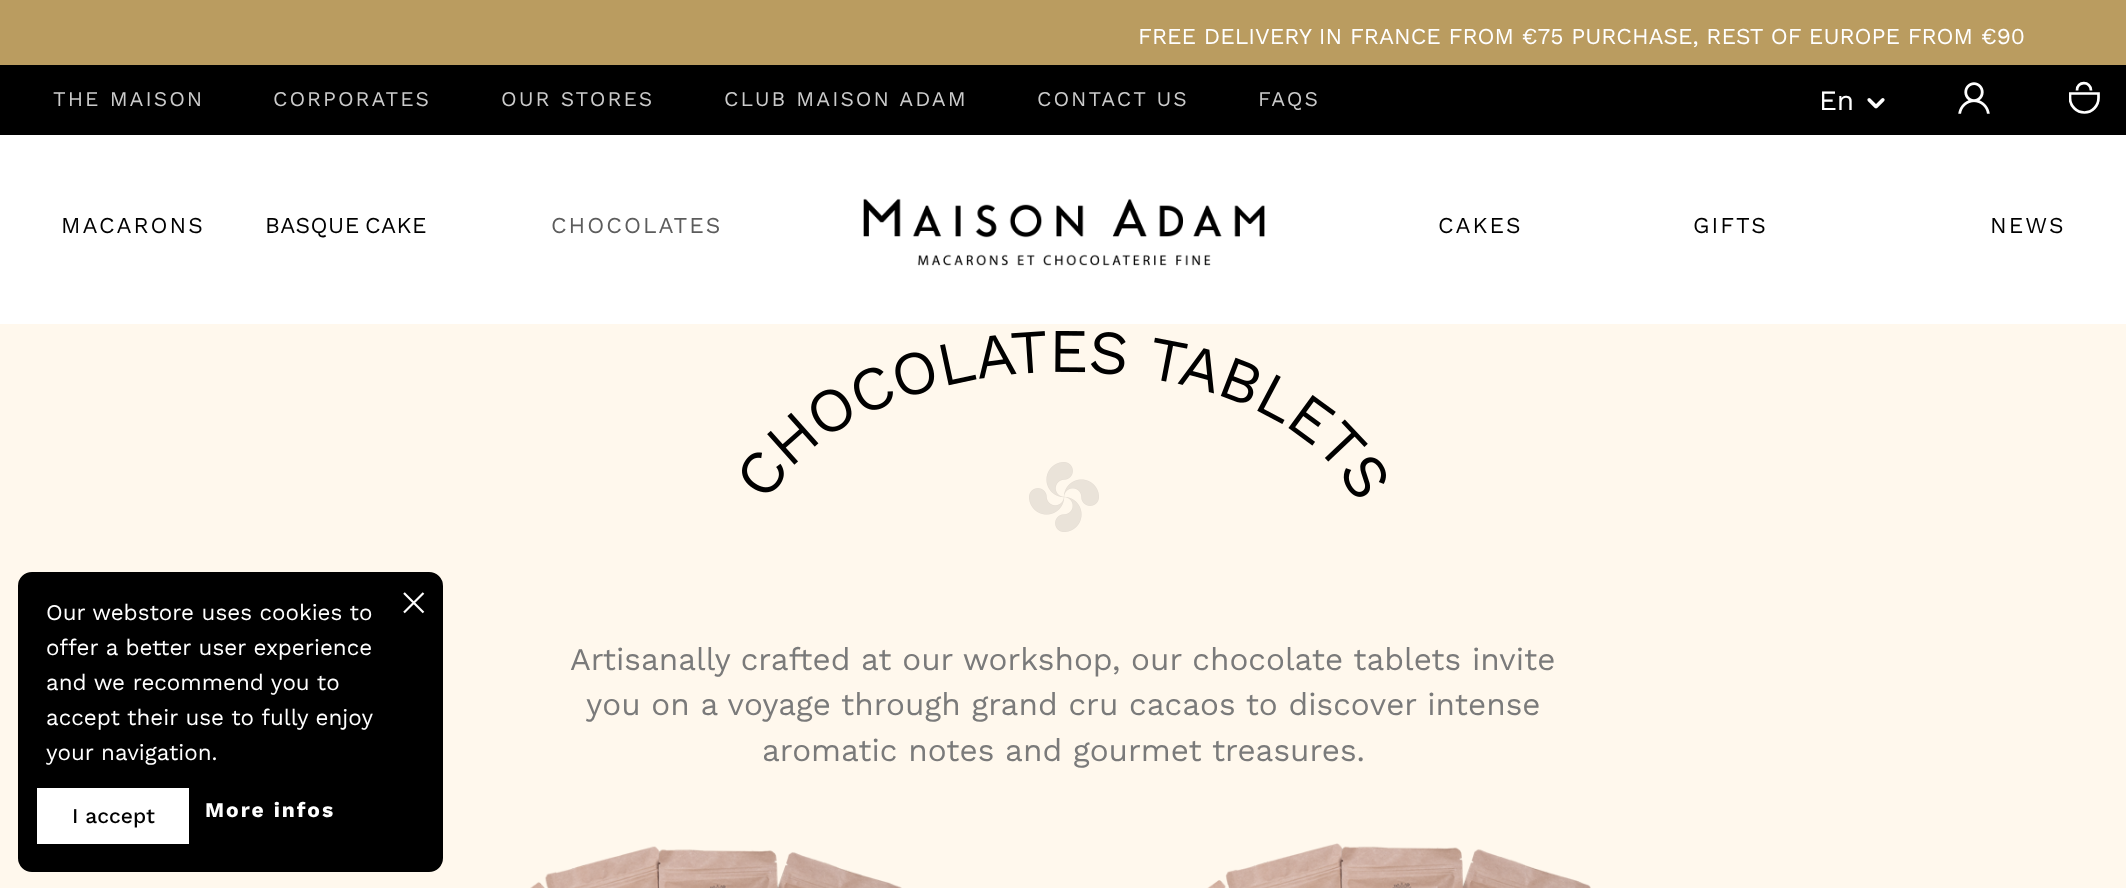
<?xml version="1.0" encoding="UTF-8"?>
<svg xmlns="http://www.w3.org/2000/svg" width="2126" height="888">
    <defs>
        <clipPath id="clip1"><rect x="2069" y="82" width="31" height="32"/></clipPath>
    </defs>
    <rect width="100%" height="100%" fill="#FFF8ED"/>
    <rect x="0" y="135" width="2126" height="189" fill="#FFFFFF"/>
    <rect x="0" y="0" width="2126" height="65" fill="#BA9C60"/>
    <text x="1138" y="44" font-family="Work Sans" font-size="22.75" fill="#FFFFFF">FREE DELIVERY IN FRANCE FROM €75 PURCHASE, REST OF EUROPE FROM €90</text>
    <rect x="0" y="65" width="2126" height="70" fill="#000000"/>
    <text x="53" y="106" font-family="Work Sans" font-size="21" letter-spacing="2" fill="#CBCBCB">THE MAISON</text>
    <text x="273" y="106" font-family="Work Sans" font-size="21" letter-spacing="2" fill="#CBCBCB">CORPORATES</text>
    <text x="501" y="106" font-family="Work Sans" font-size="21" letter-spacing="2" fill="#CBCBCB">OUR STORES</text>
    <text x="724" y="106" font-family="Work Sans" font-size="21" letter-spacing="2" fill="#CBCBCB">CLUB MAISON ADAM</text>
    <text x="1037" y="106" font-family="Work Sans" font-size="21" letter-spacing="2" fill="#CBCBCB">CONTACT US</text>
    <text x="1258" y="106" font-family="Work Sans" font-size="21" letter-spacing="2" fill="#CBCBCB">FAQS</text>
    <text x="1819" y="110" font-family="Work Sans" font-size="28" fill="#FFFFFF">En</text>
    <image x="1867" y="98" width="18" height="11" href="img_01.png"/>
    <image x="1958" y="82" width="32" height="32" href="img_02.png"/>
    <g clip-path="url(#clip1)">
        <path d="M 2070 93.5 H 2098.5 V 98 C 2098.5 106 2092 112.5 2084.5 112.5 C 2076.5 112.5 2070 106 2070 98 Z" fill="none" stroke="#FFFFFF" stroke-width="2.7"/>
    </g>
    <path d="M 2077 90.5 C 2076.5 81 2091 80.5 2091 90.5" fill="none" stroke="#FFFFFF" stroke-width="2.7"/>
    <image x="863" y="198" width="402" height="68" href="img_03.png"/>
    <text x="61" y="233" font-family="Work Sans" font-size="22.75" letter-spacing="2" fill="#000000">MACARONS</text>
    <text x="265" y="233" word-spacing="-3" font-family="Work Sans" font-size="22.75" letter-spacing="0.5" fill="#000000">BASQUE CAKE</text>
    <text x="551" y="233" font-family="Work Sans" font-size="22.75" letter-spacing="2" fill="#5C5C5C">CHOCOLATES</text>
    <text x="1438" y="233" font-family="Work Sans" font-size="22.75" letter-spacing="2" fill="#000000">CAKES</text>
    <text x="1693" y="233" font-family="Work Sans" font-size="22.75" letter-spacing="2" fill="#000000">GIFTS</text>
    <text x="1990" y="233" font-family="Work Sans" font-size="22.75" letter-spacing="2" fill="#000000">NEWS</text>
    <rect x="19" y="573" width="423" height="298" rx="13" fill="#000000" stroke="#000000" stroke-width="2"/>
    <text font-family="Work Sans" font-size="22.4" fill="#FFFFFF">
        <tspan x="46" y="620">Our webstore uses cookies to</tspan>
        <tspan x="46" y="655">offer a better user experience</tspan>
        <tspan x="46" y="690">and we recommend you to</tspan>
        <tspan x="46" y="725">accept their use to fully enjoy</tspan>
        <tspan x="46" y="760">your navigation.</tspan>
    </text>
    <rect x="37" y="788" width="152" height="56" fill="#FFFFFF"/>
    <text x="72" y="823" font-family="Work Sans" font-size="21" font-weight="500" fill="#000000">I accept</text>
    <text x="205" y="817" font-family="Work Sans" font-size="21" font-weight="700" letter-spacing="2" fill="#FFFFFF">More infos</text>
    <path d="M 404 612.5 L 423.5 593 M 423.5 612.5 L 404 593" fill="none" stroke="#FFFFFF" stroke-width="2.2"/>
    <image x="742" y="331" width="644" height="166" href="img_04.png"/>
    <image x="1029" y="462" width="70" height="70" href="img_05.png"/>
    <text x="570" y="670" font-family="Work Sans" font-size="31.5" fill="#7A7A7A">Artisanally crafted at our workshop, our chocolate tablets invite</text>
    <text x="586" y="715" font-family="Work Sans" font-size="31.5" fill="#7A7A7A">you on a voyage through grand cru cacaos to discover intense</text>
    <text x="762" y="761" font-family="Work Sans" font-size="31.5" fill="#7A7A7A">aromatic notes and gourmet treasures.</text>
    <image x="530" y="846" width="372" height="42" href="img_06.png"/>
    <image x="1207" y="843" width="384" height="45" href="img_07.png"/>
</svg>
